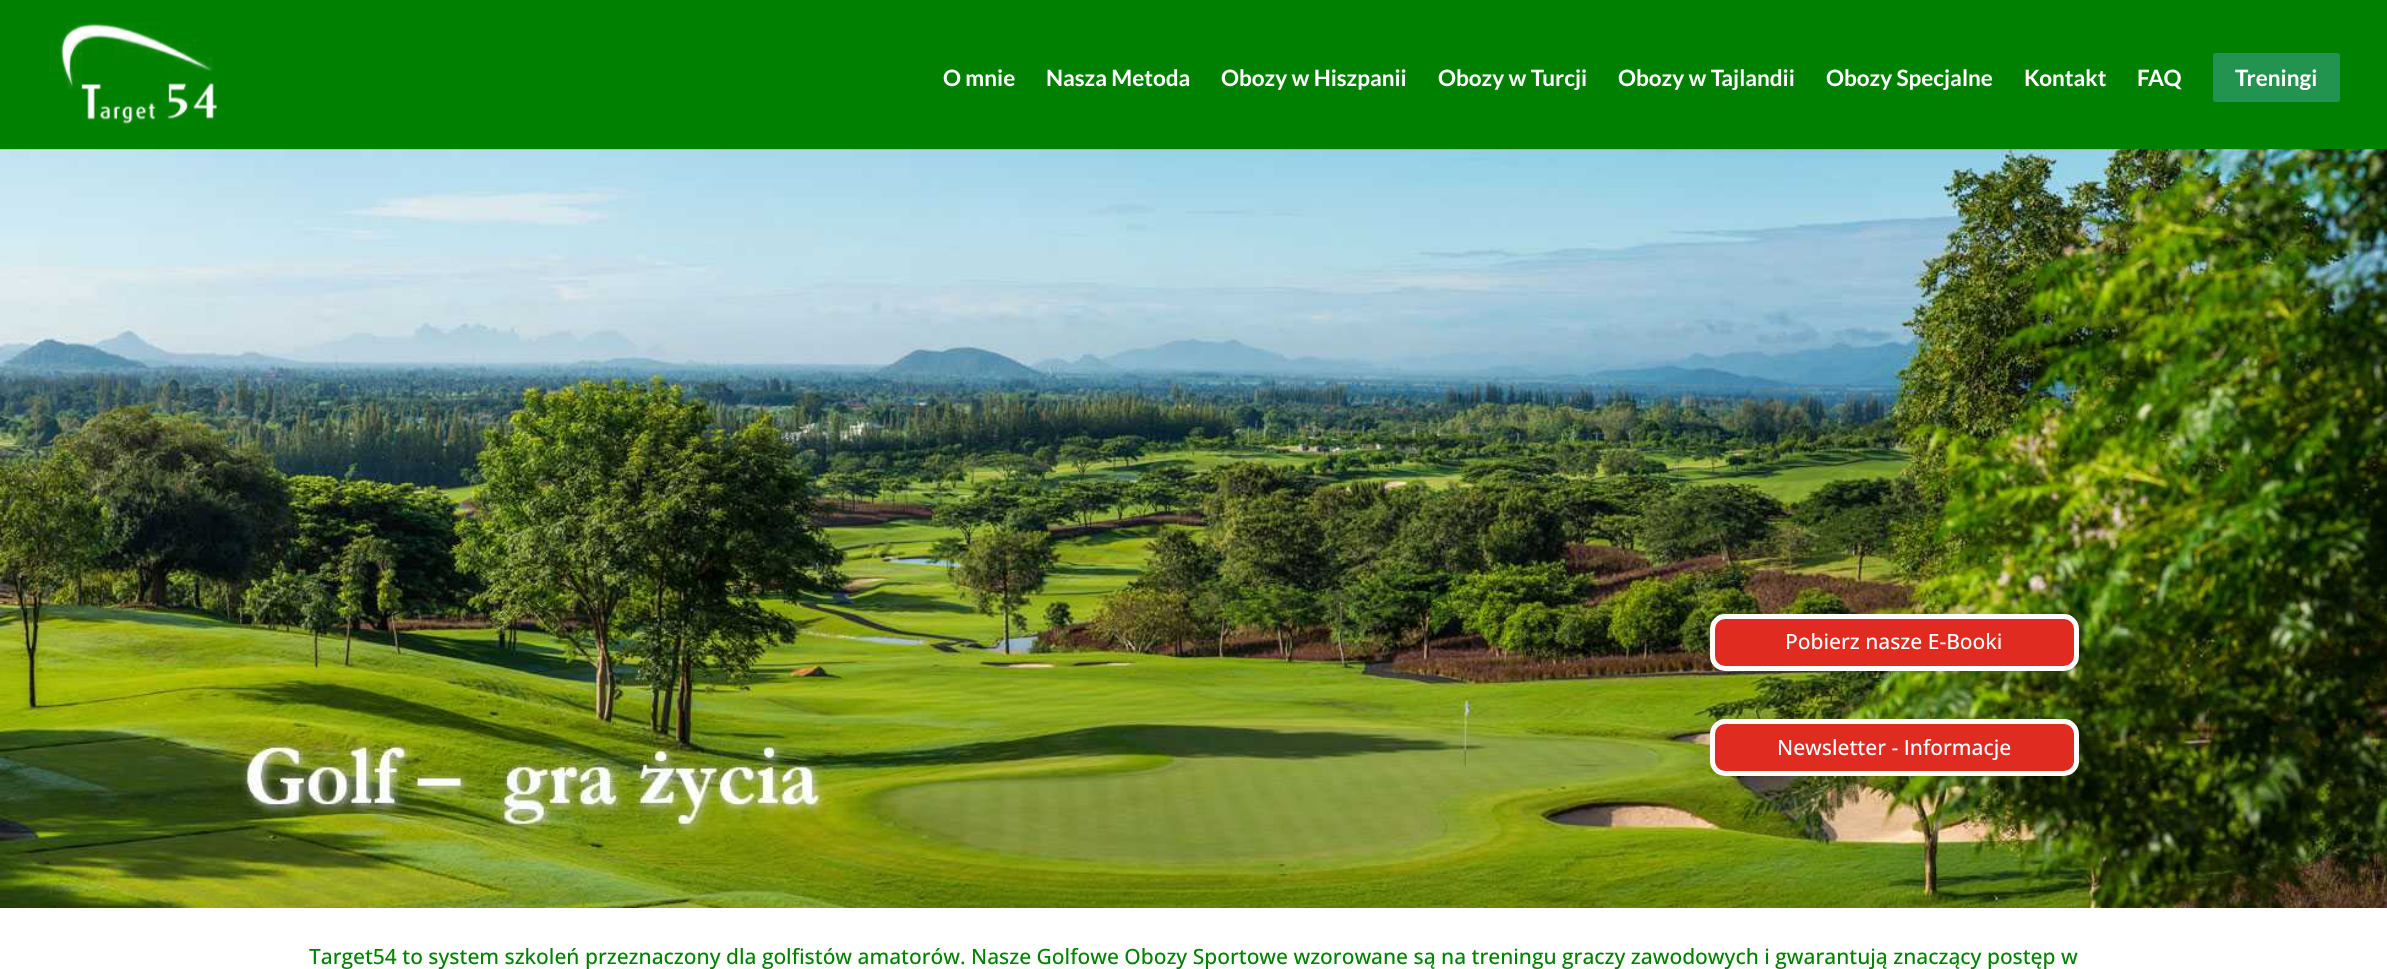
<?xml version="1.0" encoding="UTF-8"?>
<svg xmlns="http://www.w3.org/2000/svg" width="2387" height="969">
    <rect width="100%" height="100%" fill="#FFFFFF"/>
    <image x="0" y="149" width="2387" height="759" href="img_02.png"/>
    <rect x="0" y="149" width="2387" height="1" fill="#000000" fill-opacity="0.1"/>
    <rect x="0" y="0" width="2387" height="149" fill="#008001"/>
    <image x="49" y="22" width="171" height="102" href="img_01.png"/>
    <text x="943" y="86" font-family="Lato" font-size="22.5" font-weight="700" fill="#FFFFFF">O mnie</text>
    <text x="1046" y="86" font-family="Lato" font-size="22.5" font-weight="700" fill="#FFFFFF">Nasza Metoda</text>
    <text x="1221" y="86" font-family="Lato" font-size="22.5" font-weight="700" fill="#FFFFFF">Obozy w Hiszpanii</text>
    <text x="1438" y="86" font-family="Lato" font-size="22.5" font-weight="700" fill="#FFFFFF">Obozy w Turcji</text>
    <text x="1618" y="86" font-family="Lato" font-size="22.5" font-weight="700" fill="#FFFFFF">Obozy w Tajlandii</text>
    <text x="1826" y="86" font-family="Lato" font-size="22.5" font-weight="700" fill="#FFFFFF">Obozy Specjalne</text>
    <text x="2024" y="86" font-family="Lato" font-size="22.5" font-weight="700" fill="#FFFFFF">Kontakt</text>
    <text x="2137" y="86" font-family="Lato" font-size="22.5" font-weight="700" fill="#FFFFFF">FAQ</text>
    <rect x="2213" y="53" width="127" height="49" rx="3" fill="#239350"/>
    <text x="2235" y="86" font-family="Lato" font-size="22.5" font-weight="700" fill="#FFFFFF">Treningi</text>
    <rect x="1712.5" y="616.5" width="364" height="52" rx="12.5" fill="#E02B20" stroke="#FFFFFF" stroke-width="5"/>
    <text x="1785" y="649" font-family="Open Sans" font-size="21" font-weight="500" fill="#FFFFFF">Pobierz nasze E-Booki</text>
    <rect x="1712.5" y="721.5" width="364" height="52" rx="12.5" fill="#E02B20" stroke="#FFFFFF" stroke-width="5"/>
    <text x="1777" y="755" font-family="Open Sans" font-size="21" font-weight="500" fill="#FFFFFF">Newsletter - Informacje</text>
    <text x="309" y="964" font-family="Open Sans" font-size="21" font-weight="500" fill="#008000">Target54 to system szkoleń przeznaczony dla golfistów amatorów. Nasze Golfowe Obozy Sportowe wzorowane są na treningu graczy zawodowych i gwarantują znaczący postęp w</text>
</svg>
